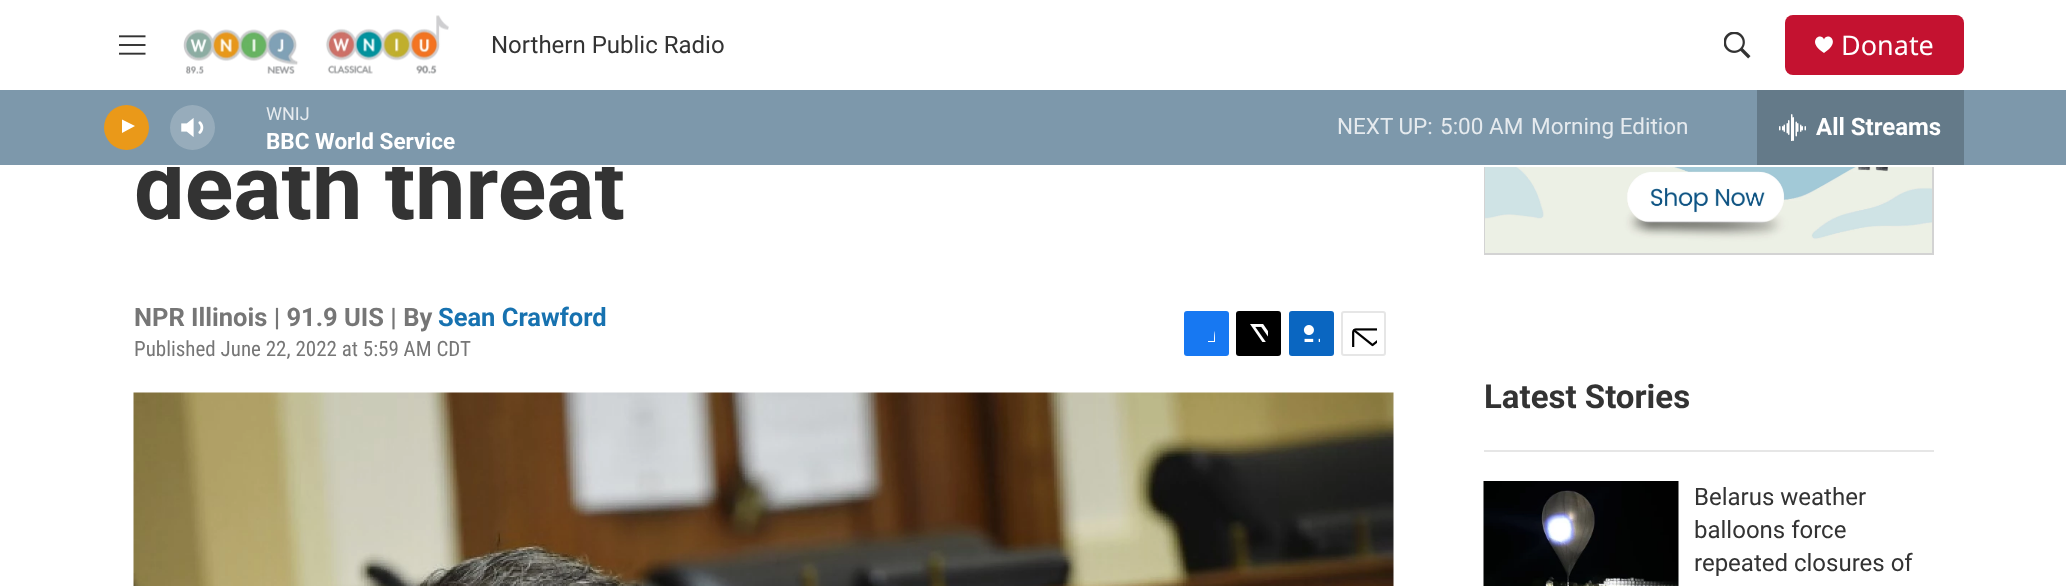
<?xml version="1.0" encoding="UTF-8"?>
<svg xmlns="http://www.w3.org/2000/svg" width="2066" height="586">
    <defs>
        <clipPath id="clip1"><rect x="122" y="117" width="17" height="23"/></clipPath>
        <clipPath id="clip2"><rect x="1197" y="324" width="18" height="18"/></clipPath>
    </defs>
    <rect width="100%" height="100%" fill="#FFFFFF"/>
    <text x="134" y="219" font-family="Roboto" font-size="90" font-weight="700" fill="#333333">death threat</text>
    <rect x="1485" y="-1" width="448" height="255" fill="none" stroke="#D3D3D3" stroke-width="2"/>
    <rect x="166" y="0" width="1768" height="167" fill="#FFFFFF"/>
    <image x="119" y="35" width="27" height="20" href="img_01.png"/>
    <image x="183" y="15" width="266" height="59" href="img_02.png"/>
    <text x="491" y="53" font-family="Roboto" font-size="24" fill="#333333">Northern Public Radio</text>
    <image x="1724" y="32" width="27" height="27" href="img_03.png"/>
    <rect x="1785" y="15" width="179" height="60" rx="8" fill="#C41230"/>
    <path d="M 1824 39.5 C 1821 31.5 1805.5 41.5 1824 53 C 1842.5 41.5 1827 31.5 1824 39.5 Z" fill="#FFFFFF"/>
    <text x="1841" y="55" font-family="Noto Sans" font-size="27" fill="#FFFFFF">Donate</text>
    <rect x="0" y="90" width="2066" height="75" fill="#7D98AB"/>
    <circle cx="126.5" cy="127.5" r="22.5" fill="#EA9919"/>
    <g clip-path="url(#clip1)">
        <path d="M 121 119 L 135 126 L 121 133.5 Z" fill="#FFFFFF"/>
    </g>
    <image x="181" y="118" width="23" height="19" href="img_04.png"/>
    <circle cx="192.5" cy="127.5" r="22.5" fill="#FFFFFF" fill-opacity="0.2"/>
    <text x="266" y="120" font-family="Roboto" font-size="18" fill="#E5EAEE">WNIJ</text>
    <text x="266" y="149" font-family="'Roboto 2'" font-size="22.5" font-weight="700" fill="#FFFFFF">BBC World Service</text>
    <text x="1337" y="134" font-family="Roboto" font-size="22.5" fill="#E5EAEE">NEXT UP:</text>
    <text x="1440" y="134" font-family="Roboto" font-size="22.5" fill="#E5EAEE">5:00 AM</text>
    <text x="1531" y="134" font-family="Roboto" font-size="22.5" fill="#E5EAEE">Morning Edition</text>
    <rect x="1757" y="90" width="207" height="75" fill="#647A89"/>
    <image x="1779" y="114" width="27" height="27" href="img_05.png"/>
    <text x="1816" y="135" font-family="'Roboto 2'" font-size="24" font-weight="700" fill="#FFFFFF">All Streams</text>
    <text x="134" y="326" font-family="Roboto" font-size="25.5" font-weight="700" fill="#767676">NPR Illinois | 91.9 UIS | By</text>
    <text x="438" y="326" font-family="Roboto" font-size="25.5" font-weight="700" fill="#1772B0">Sean Crawford</text>
    <text x="134" y="356" font-family="Roboto Condensed" font-size="21" fill="#767676">Published June 22, 2022 at 5:59 AM CDT</text>
    <rect x="1184" y="311" width="45" height="45" rx="3" fill="#1778F2"/>
    <g clip-path="url(#clip2)">
        <path d="M 1222 356 H 1214 V 348 H 1208 V 341 H 1214 C 1214 328.5 1216 323 1229 325 V 332 C 1220.5 332 1222 333.5 1222 341 H 1229 L 1228 348 H 1222 Z" fill="#FFFFFF"/>
    </g>
    <rect x="1236" y="311" width="45" height="45" rx="3" fill="#000000"/>
    <image x="1250" y="324" width="18" height="18" href="img_06.png"/>
    <rect x="1289" y="311" width="45" height="45" rx="3" fill="#0A66C1"/>
    <image x="1303" y="325" width="17" height="17" href="img_07.png"/>
    <rect x="1342" y="312" width="43" height="43" rx="2" fill="none" stroke="#E6E6E6" stroke-width="2"/>
    <image x="1352" y="328" width="25" height="19" href="img_08.png"/>
    <image x="133" y="392" width="1261" height="194" href="img_09.png"/>
    <image x="1485" y="167" width="447" height="86" href="img_10.png"/>
    <rect x="1484" y="450" width="450" height="2" fill="#E6E6E6"/>
    <text x="1484" y="408" font-family="Roboto" font-size="33" font-weight="700" fill="#333333">Latest Stories</text>
    <image x="1483" y="481" width="196" height="105" href="img_11.png"/>
    <text font-family="Roboto" font-size="24" fill="#333333">
        <tspan x="1694" y="505">Belarus weather</tspan>
        <tspan x="1694" y="538">balloons force</tspan>
        <tspan x="1694" y="571">repeated closures of</tspan>
    </text>
</svg>
